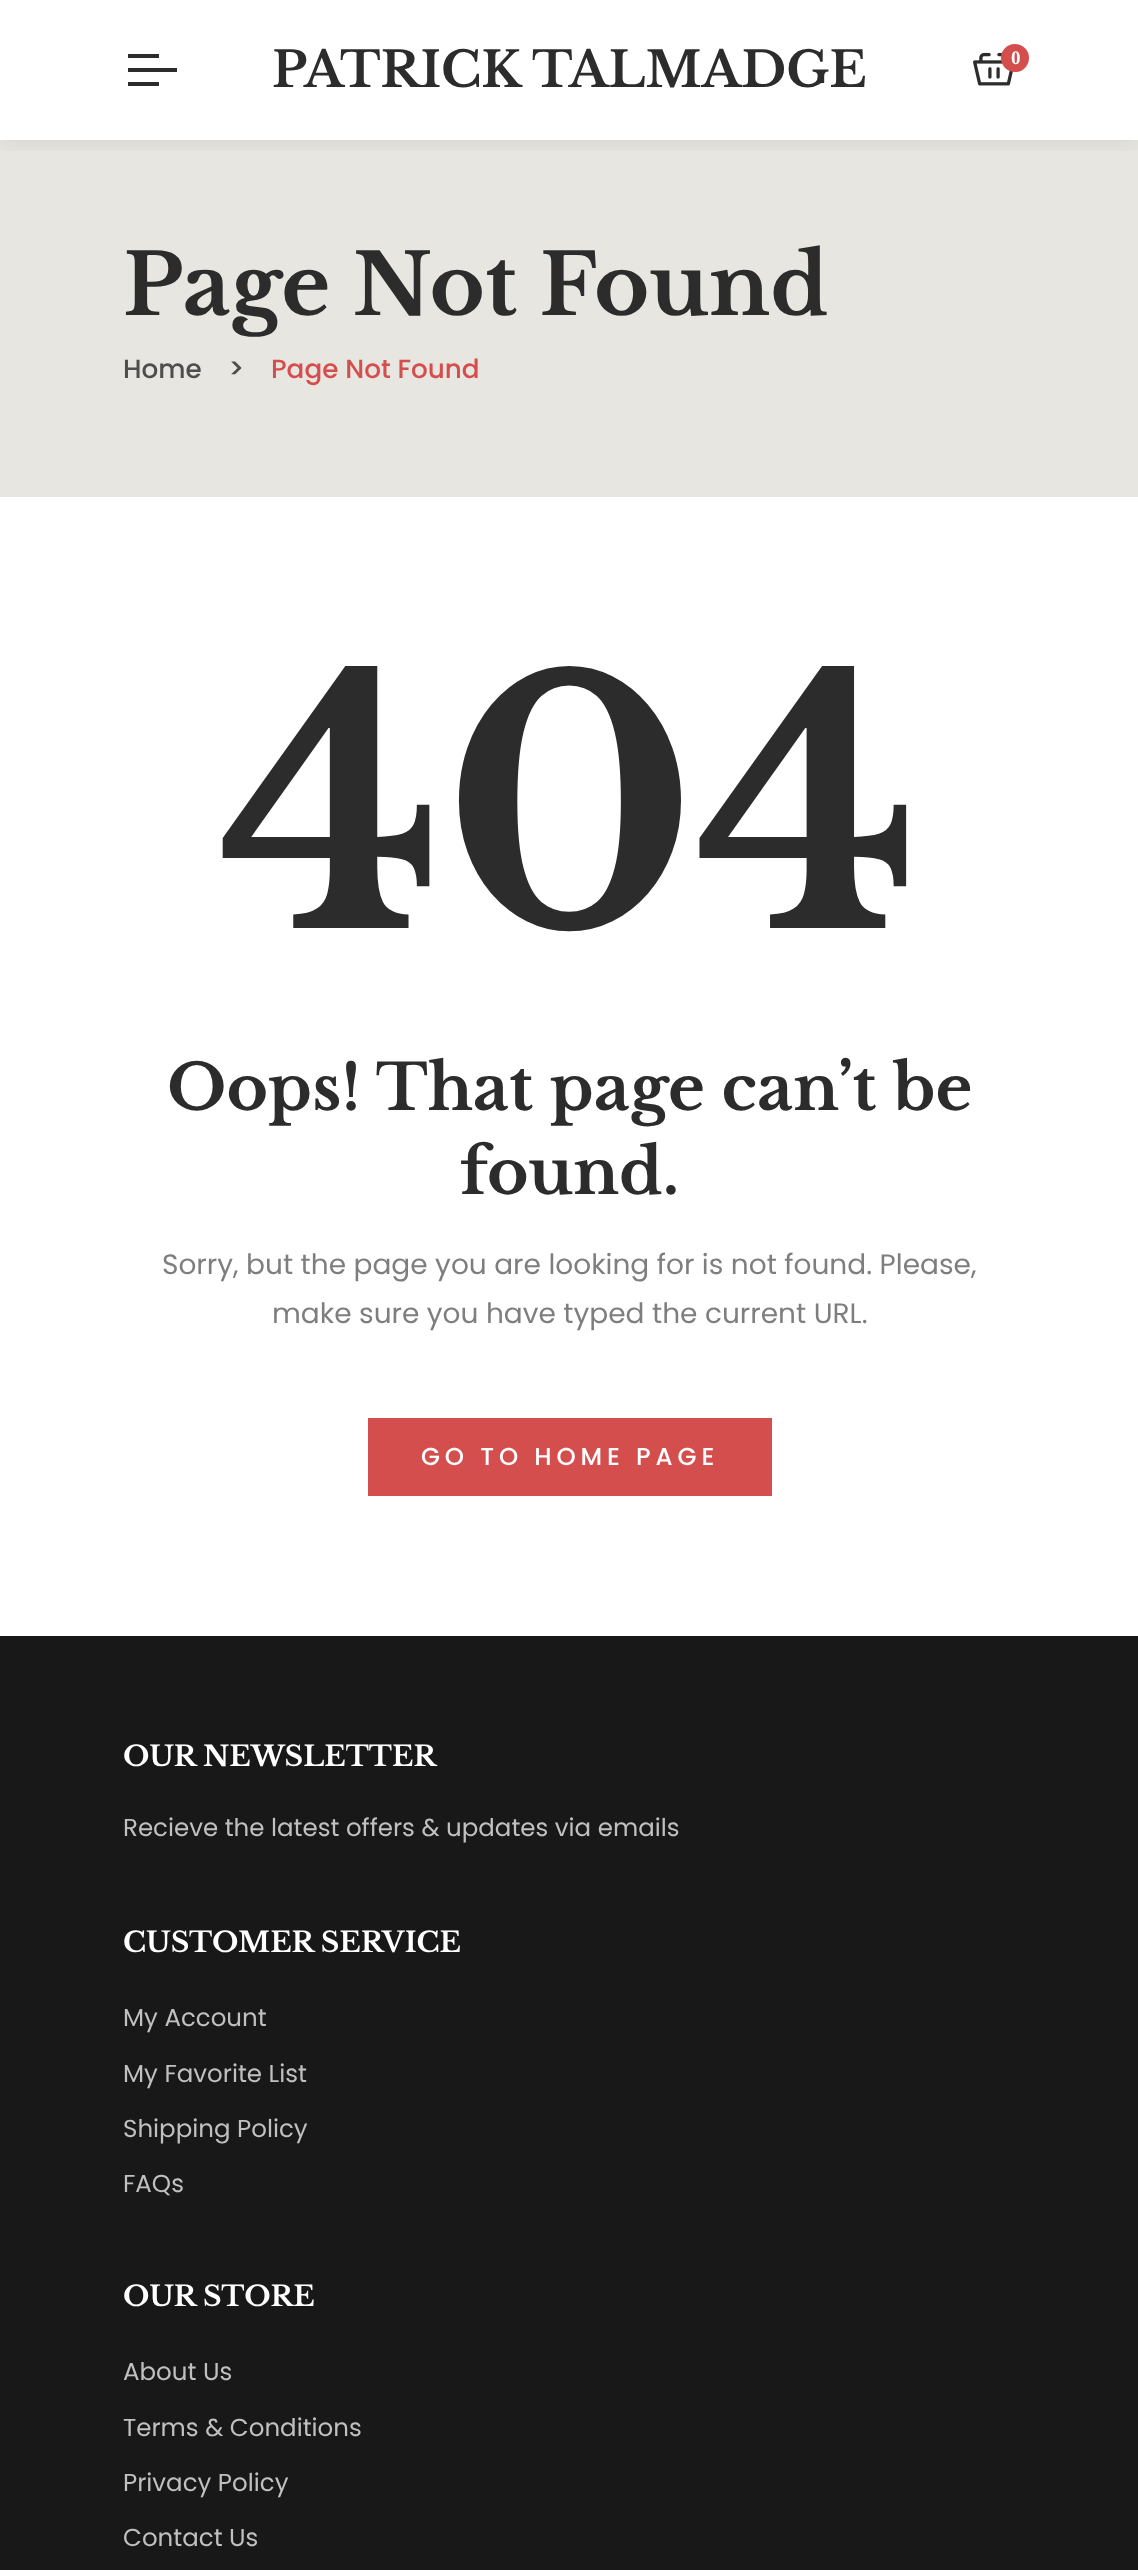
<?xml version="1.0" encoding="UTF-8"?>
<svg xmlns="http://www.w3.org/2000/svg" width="1138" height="2570">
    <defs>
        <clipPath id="clip1"><rect x="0" y="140" width="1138" height="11"/></clipPath>
        <filter id="blur1" x="-50%" y="-200%" width="200%" height="500%"><feGaussianBlur stdDeviation="13"/></filter>
    </defs>
    <rect width="100%" height="100%" fill="#FFFFFF"/>
    <rect x="0" y="140" width="1138" height="357" fill="#E7E6E0"/>
    <g clip-path="url(#clip1)">
        <rect x="0" y="0" width="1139" height="140" fill="#000000" fill-opacity="0.1" filter="url(#blur1)"/>
    </g>
    <rect x="128" y="68" width="49" height="4" fill="#2C2C2C"/>
    <rect x="128" y="54" width="31" height="4" fill="#2C2C2C"/>
    <rect x="128" y="82" width="31" height="4" fill="#2C2C2C"/>
    <text x="272" y="87" font-family="Libre Baskerville" font-size="49" font-weight="700" fill="#2C2C2C">PATRICK TALMADGE</text>
    <image x="973" y="52" width="40" height="34" href="img_01.png"/>
    <circle cx="1015" cy="58" r="14" fill="#D54E4E"/>
    <text x="1011" y="64" font-family="Liberation Serif" font-size="19" font-weight="700" fill="#FFFFFF">0</text>
    <text x="123" y="315" font-family="Libre Baskerville" font-size="84" font-weight="700" fill="#2C2C2C">Page Not Found</text>
    <text x="123" y="378" font-family="Poppins" font-size="26.25" font-weight="500" fill="#4E4E4C">Home</text>
    <text x="228" y="378" font-family="Poppins" font-size="28" font-weight="500" fill="#4E4E4C">&gt;</text>
    <text x="271" y="378" font-family="Poppins" font-size="26.25" font-weight="500" fill="#D54E4E">Page Not Found</text>
    <text x="220" y="928" font-family="Libre Baskerville" font-size="336" font-weight="700" fill="#2C2C2C">404</text>
    <text x="167" y="1110" font-family="Libre Baskerville" font-size="63" font-weight="700" fill="#2C2C2C">Oops! That page can’t be</text>
    <text x="460" y="1194" font-family="Libre Baskerville" font-size="63" font-weight="700" fill="#2C2C2C">found.</text>
    <text x="162" y="1274" font-family="Poppins" font-size="28" fill="#7E7E7E">Sorry, but the page you are looking for is not found. Please,</text>
    <text x="272" y="1323" font-family="Poppins" font-size="28" fill="#7E7E7E">make sure you have typed the current URL.</text>
    <rect x="368" y="1418" width="404" height="78" fill="#D54E4E"/>
    <text x="421" y="1465" font-family="Poppins" font-size="24.5" font-weight="500" letter-spacing="4.9" fill="#FFFFFF">GO TO HOME PAGE</text>
    <rect x="0" y="1636" width="1138" height="934" fill="#181818"/>
    <text x="123" y="1766" font-family="Libre Baskerville" font-size="28" font-weight="700" fill="#FFFFFF">OUR NEWSLETTER</text>
    <text x="123" y="1836" font-family="Poppins" font-size="24.5" fill="#C0C0C0">Recieve the latest offers &amp; updates via emails</text>
    <text x="123" y="1952" font-family="Libre Baskerville" font-size="28" font-weight="700" fill="#FFFFFF">CUSTOMER SERVICE</text>
    <text x="123" y="2026" font-family="Poppins" font-size="24.5" fill="#C0C0C0">My Account</text>
    <text x="123" y="2082" font-family="Poppins" font-size="24.5" fill="#C0C0C0">My Favorite List</text>
    <text x="123" y="2137" font-family="Poppins" font-size="24.5" fill="#C0C0C0">Shipping Policy</text>
    <text x="123" y="2192" font-family="Poppins" font-size="24.5" fill="#C0C0C0">FAQs</text>
    <text x="123" y="2306" font-family="Libre Baskerville" font-size="28" font-weight="700" fill="#FFFFFF">OUR STORE</text>
    <text x="123" y="2380" font-family="Poppins" font-size="24.5" fill="#C0C0C0">About Us</text>
    <text x="123" y="2436" font-family="Poppins" font-size="24.5" fill="#C0C0C0">Terms &amp; Conditions</text>
    <text x="123" y="2491" font-family="Poppins" font-size="24.5" fill="#C0C0C0">Privacy Policy</text>
    <text x="123" y="2546" font-family="Poppins" font-size="24.5" fill="#C0C0C0">Contact Us</text>
</svg>
